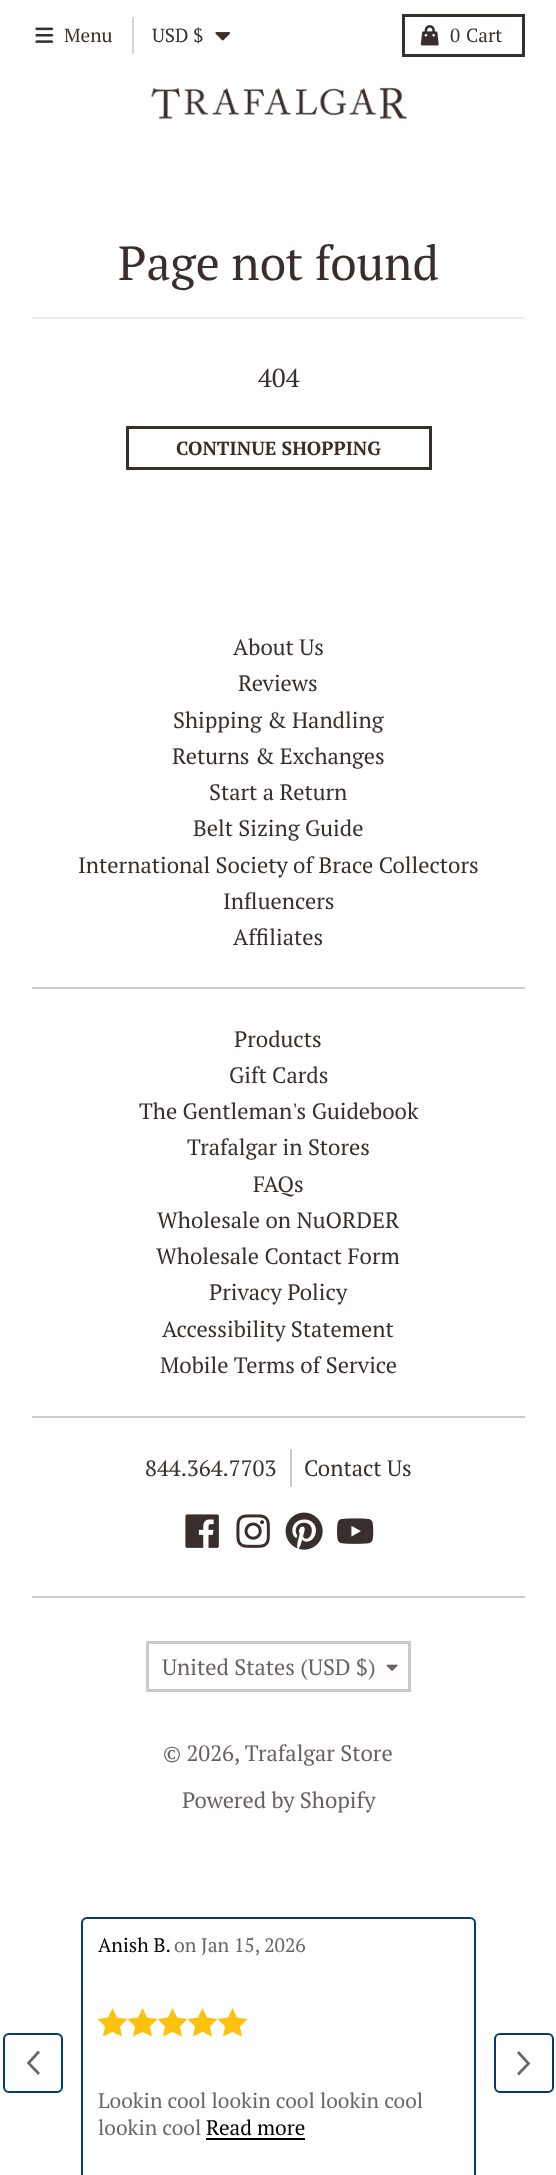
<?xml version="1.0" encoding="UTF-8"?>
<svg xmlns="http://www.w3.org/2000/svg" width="556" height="2175">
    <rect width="100%" height="100%" fill="#FFFFFF"/>
    <image x="35" y="27" width="19" height="16" href="img_01.png"/>
    <text x="64" y="42" font-family="PT Serif" font-size="19.1" fill="#382E2C">Menu</text>
    <rect x="132" y="17" width="2" height="37" fill="#D7D5D5"/>
    <text x="152" y="42" font-family="PT Serif" font-size="19.1" fill="#382E2C">USD $</text>
    <image x="215" y="32" width="16" height="9" href="img_02.png"/>
    <rect x="403.5" y="15.5" width="120" height="40" fill="none" stroke="#382E2C" stroke-width="3"/>
    <image x="420" y="25" width="19" height="21" href="img_03.png"/>
    <text x="450" y="42" font-family="PT Serif" font-size="19.1" fill="#382E2C">0</text>
    <text x="466" y="42" font-family="PT Serif" font-size="19.1" fill="#382E2C">Cart</text>
    <image x="151" y="87" width="256" height="32" href="img_04.png"/>
    <rect x="32" y="317" width="493" height="2" fill="#EDEDED"/>
    <text x="118" y="280" font-family="PT Serif" font-size="47.75" fill="#382E2C">Page not found</text>
    <text x="258" y="387" font-family="PT Serif" font-size="26" fill="#382E2C">404</text>
    <rect x="127.5" y="427.5" width="303" height="41" fill="none" stroke="#382E2C" stroke-width="3"/>
    <text x="176" y="455" font-family="PT Serif" font-size="19.1" font-weight="700" fill="#382E2C">CONTINUE SHOPPING</text>
    <text x="233" y="655" font-family="PT Serif" font-size="22.3" fill="#382E2C">About Us</text>
    <text x="238" y="691" font-family="PT Serif" font-size="22.3" fill="#382E2C">Reviews</text>
    <text x="173" y="728" font-family="PT Serif" font-size="22.3" fill="#382E2C">Shipping &amp; Handling</text>
    <text x="172" y="764" font-family="PT Serif" font-size="22.3" fill="#382E2C">Returns &amp; Exchanges</text>
    <text x="209" y="800" font-family="PT Serif" font-size="22.3" fill="#382E2C">Start a Return</text>
    <text x="193" y="836" font-family="PT Serif" font-size="22.3" fill="#382E2C">Belt Sizing Guide</text>
    <text x="78" y="873" font-family="PT Serif" font-size="22.3" fill="#382E2C">International Society of Brace Collectors</text>
    <text x="223" y="909" font-family="PT Serif" font-size="22.3" fill="#382E2C">Influencers</text>
    <text x="233" y="945" font-family="PT Serif" font-size="22.3" fill="#382E2C">Affiliates</text>
    <rect x="32" y="987" width="493" height="2" fill="#CDCBCA"/>
    <text x="234" y="1047" font-family="PT Serif" font-size="22.3" fill="#382E2C">Products</text>
    <text x="229" y="1083" font-family="PT Serif" font-size="22.3" fill="#382E2C">Gift Cards</text>
    <text x="139" y="1119" font-family="PT Serif" font-size="22.3" fill="#382E2C">The Gentleman's Guidebook</text>
    <text x="187" y="1155" font-family="PT Serif" font-size="22.3" fill="#382E2C">Trafalgar in Stores</text>
    <text x="253" y="1192" font-family="PT Serif" font-size="22.3" fill="#382E2C">FAQs</text>
    <text x="157" y="1228" font-family="PT Serif" font-size="22.3" fill="#382E2C">Wholesale on NuORDER</text>
    <text x="156" y="1264" font-family="PT Serif" font-size="22.3" fill="#382E2C">Wholesale Contact Form</text>
    <text x="209" y="1300" font-family="PT Serif" font-size="22.3" fill="#382E2C">Privacy Policy</text>
    <text x="162" y="1337" font-family="PT Serif" font-size="22.3" fill="#382E2C">Accessibility Statement</text>
    <text x="160" y="1373" font-family="PT Serif" font-size="22.3" fill="#382E2C">Mobile Terms of Service</text>
    <rect x="32" y="1416" width="493" height="2" fill="#CDCBCA"/>
    <text x="145" y="1476" font-family="PT Serif" font-size="22.3" fill="#382E2C">844.364.7703</text>
    <rect x="290" y="1449" width="2" height="38" fill="#CDCBCA"/>
    <text x="304" y="1476" font-family="PT Serif" font-size="22.3" fill="#382E2C">Contact Us</text>
    <image x="185" y="1514" width="34" height="34" href="img_05.png"/>
    <image x="236" y="1514" width="34" height="34" href="img_06.png"/>
    <image x="285" y="1512" width="38" height="38" href="img_07.png"/>
    <image x="337" y="1518" width="37" height="26" href="img_08.png"/>
    <rect x="32" y="1596" width="493" height="2" fill="#CDCBCA"/>
    <rect x="147.5" y="1642.5" width="262" height="48" fill="none" stroke="#CDCBCA" stroke-width="3"/>
    <text x="162" y="1675" font-family="PT Serif" font-size="22.3" fill="#6A6261">United States (USD $)</text>
    <image x="386" y="1664" width="12" height="7" href="img_09.png"/>
    <text x="163" y="1761" font-family="PT Serif" font-size="22.3" fill="#6A6261">© 2026, Trafalgar Store</text>
    <text x="182" y="1808" font-family="PT Serif" font-size="22.3" fill="#6A6261">Powered by Shopify</text>
    <rect x="4" y="2034" width="58" height="58" rx="5" fill="none" stroke="#053972" stroke-width="2"/>
    <path d="M 39 2051.5 L 28.5 2063 L 39 2074" fill="none" stroke="#676767" stroke-width="2.7"/>
    <rect x="82" y="1918" width="393" height="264" rx="5" fill="none" stroke="#053972" stroke-width="2"/>
    <text x="98" y="1952" font-family="PT Serif" font-size="19.5" fill="#000000">Anish B.</text>
    <text x="174" y="1952" font-family="PT Serif" font-size="19.5" fill="#676767">on Jan 15, 2026</text>
    <path d="M 127.5 2019 L 117 2017.5 L 112.5 2008 L 108 2017.5 L 97.5 2019 L 105 2026.5 L 103 2036.5 L 112.5 2032 L 122 2036.5 L 120 2026.5 Z" fill="#FDC20E"/>
    <path d="M 157.5 2019 L 147 2017.5 L 142.5 2008 L 138 2017.5 L 127.5 2019 L 135 2026.5 L 133 2036.5 L 142.5 2032 L 152 2036.5 L 150 2026.5 Z" fill="#FDC20E"/>
    <path d="M 187.5 2019 L 177 2017.5 L 172.5 2008 L 168 2017.5 L 157.5 2019 L 165 2026.5 L 163 2036.5 L 172.5 2032 L 182 2036.5 L 180 2026.5 Z" fill="#FDC20E"/>
    <path d="M 217.5 2019 L 207 2017.5 L 202.5 2008 L 198 2017.5 L 187.5 2019 L 195 2026.5 L 193 2036.5 L 202.5 2032 L 212 2036.5 L 210 2026.5 Z" fill="#FDC20E"/>
    <path d="M 247.5 2019 L 237 2017.5 L 232.5 2008 L 228 2017.5 L 217.5 2019 L 225 2026.5 L 223 2036.5 L 232.5 2032 L 242 2036.5 L 240 2026.5 Z" fill="#FDC20E"/>
    <text font-family="PT Serif" font-size="21" fill="#676767">
        <tspan x="98" y="2108">Lookin cool lookin cool lookin cool</tspan>
        <tspan x="98" y="2135">lookin cool</tspan>
    </text>
    <text x="206" y="2135" font-family="PT Serif" font-size="21" fill="#000000">Read more</text>
    <rect x="206" y="2138" width="99" height="2" fill="#000000"/>
    <rect x="495" y="2034" width="58" height="58" rx="5" fill="none" stroke="#053972" stroke-width="2"/>
    <path d="M 518 2052 L 528.5 2063.5 L 518 2074.5" fill="none" stroke="#676767" stroke-width="2.7"/>
</svg>
